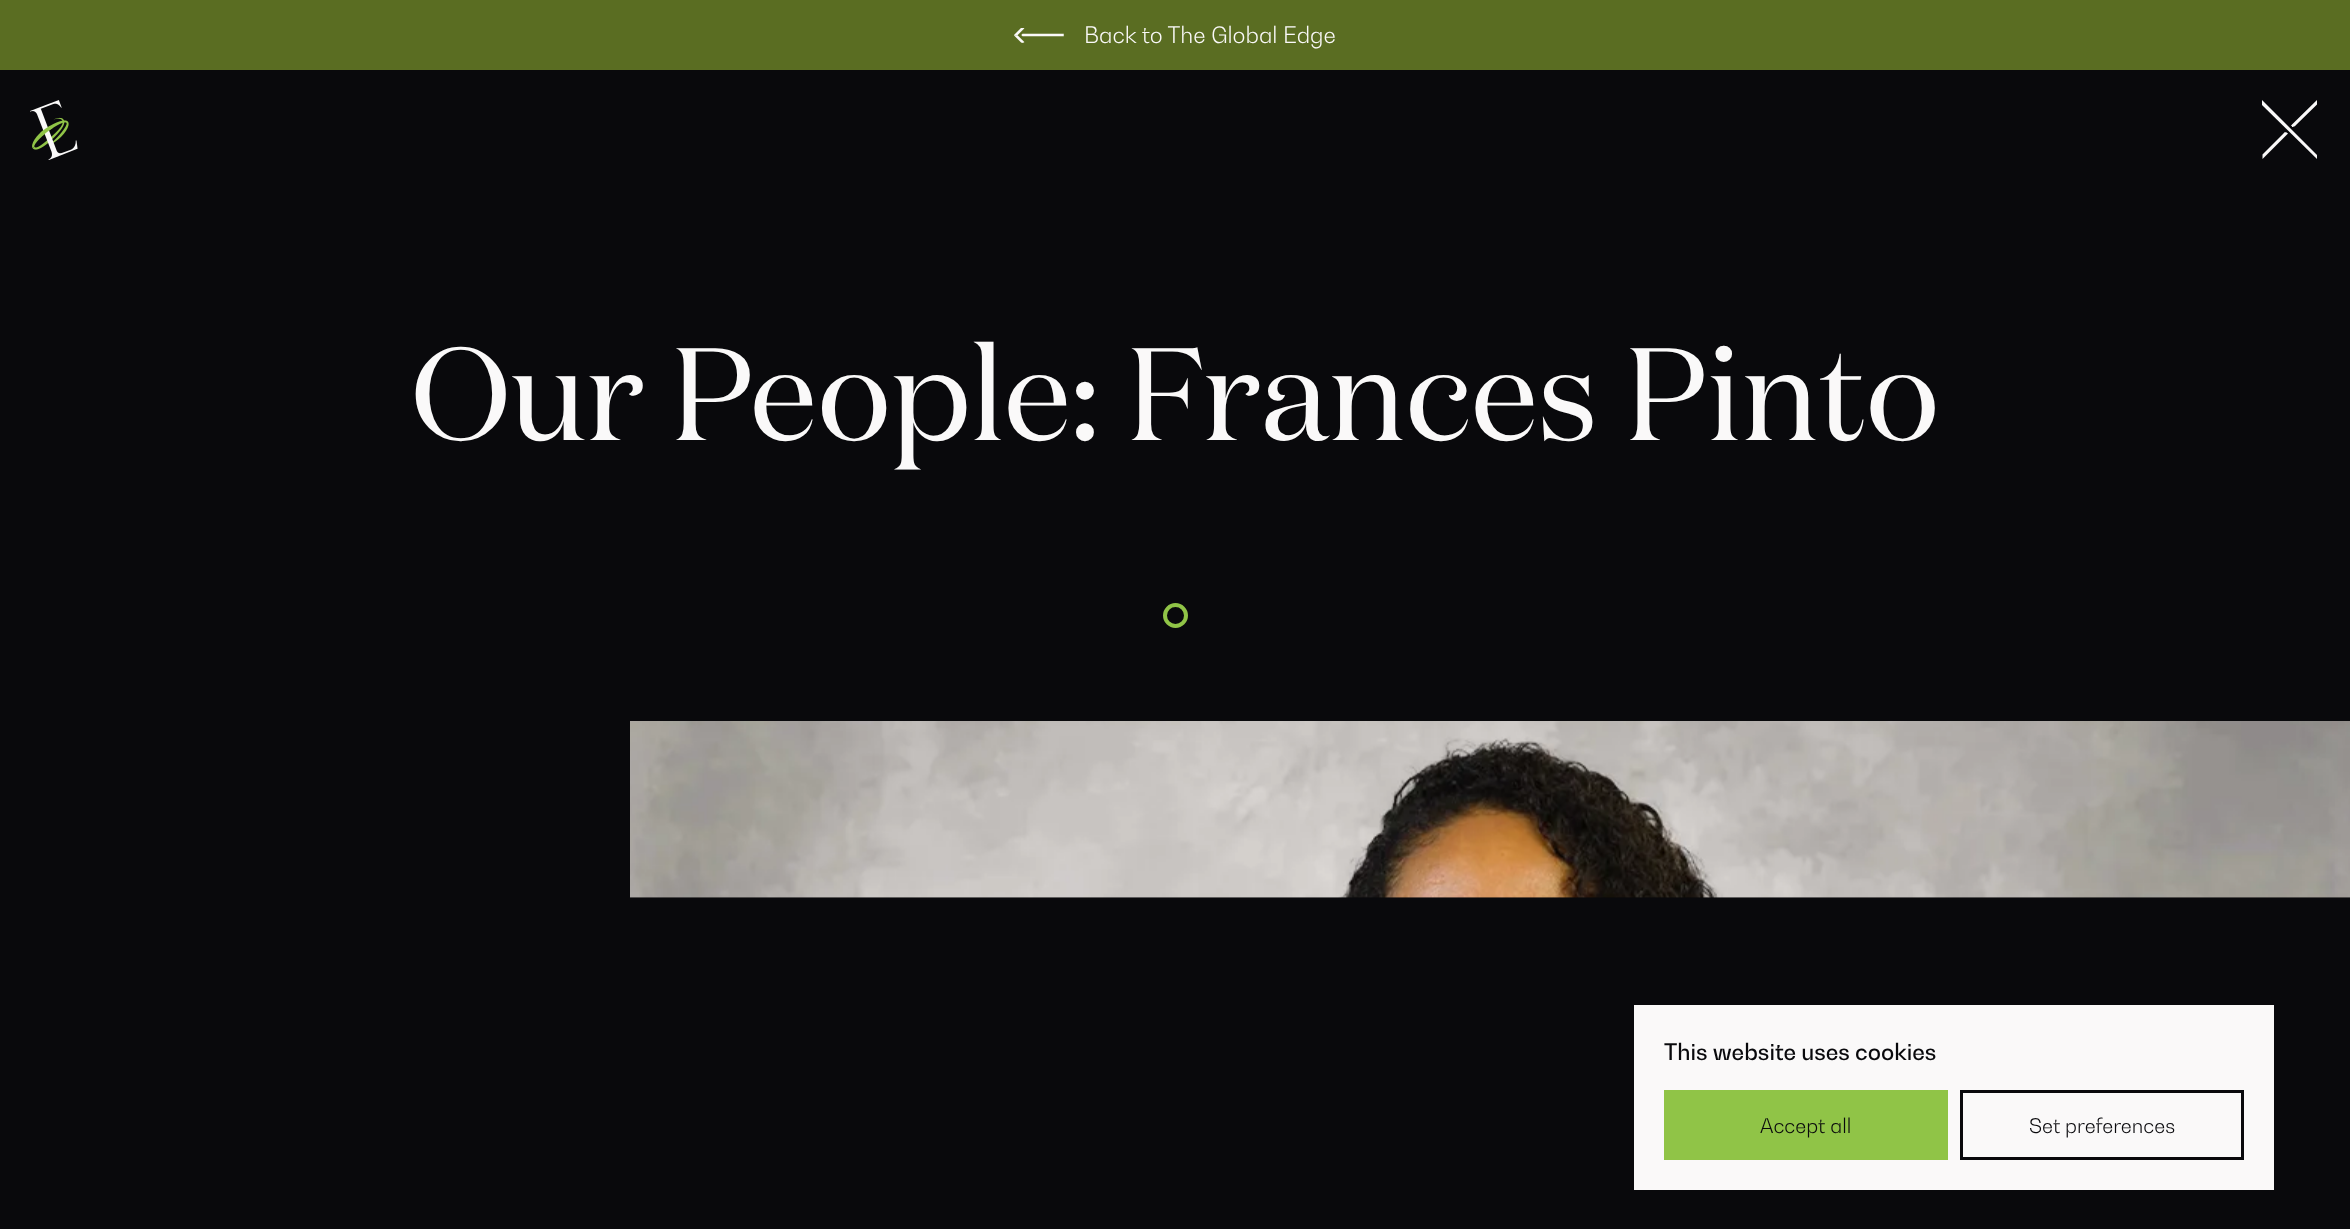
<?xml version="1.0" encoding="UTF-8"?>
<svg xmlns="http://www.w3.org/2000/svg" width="2350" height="1229">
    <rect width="100%" height="100%" fill="#09090C"/>
    <rect x="0" y="0" width="2350" height="70" fill="#5A6D22"/>
    <image x="1014" y="28" width="50" height="15" href="img_01.png"/>
    <text x="1084" y="43" font-family="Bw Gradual" font-size="22.5" font-weight="300" fill="#FAF9F9">Back to The Global Edge</text>
    <image x="30" y="100" width="48" height="60" href="img_02.png"/>
    <path d="M 2317 155 L 2262 100 V 105 L 2317 159 Z" fill="#FAF9F9"/>
    <path d="M 2317 104.5 V 100 L 2291 125.5 C 2293 127.5 2295 126.5 2295.5 125.5 Z M 2262.5 154.5 V 159 L 2288 133.5 C 2286 131.5 2284 132.5 2283.5 133.5 Z" fill="#FAF9F9"/>
    <text x="411" y="440" font-family="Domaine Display" font-size="131.25" fill="#FAF9F9">Our People: Frances Pinto</text>
    <image x="630" y="721" width="1720" height="177" href="img_03.png"/>
    <circle cx="1175.5" cy="615.5" r="10.5" fill="none" stroke="#90C447" stroke-width="4"/>
    <rect x="1634" y="1005" width="640" height="185" fill="#FAF9F9"/>
    <text x="1664" y="1060" font-family="Bw Gradual" font-size="22.5" font-weight="500" fill="#09090C">This website uses cookies</text>
    <rect x="1664" y="1090" width="284" height="70" fill="#90C447"/>
    <text x="1760" y="1133" font-family="Bw Gradual" font-size="20" font-weight="300" fill="#09090C">Accept all</text>
    <rect x="1961.5" y="1091.5" width="281" height="67" fill="none" stroke="#09090C" stroke-width="3"/>
    <text x="2029" y="1133" font-family="Bw Gradual" font-size="20" font-weight="300" fill="#09090C">Set preferences</text>
</svg>
